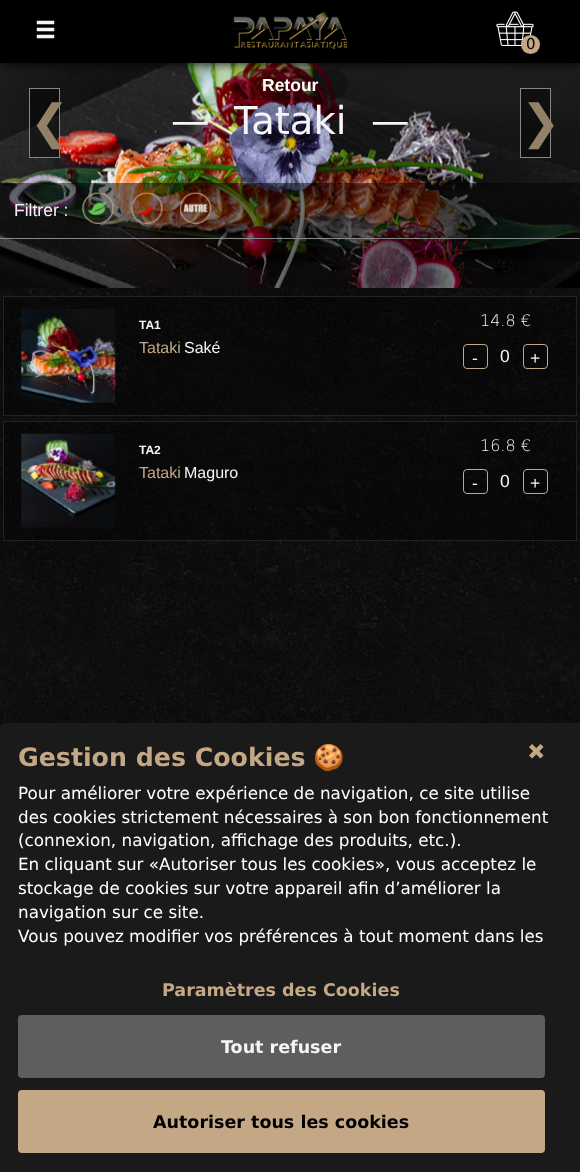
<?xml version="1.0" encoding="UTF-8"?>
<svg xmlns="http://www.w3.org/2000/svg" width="580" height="1172">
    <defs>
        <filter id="blur1" x="-50%" y="-200%" width="200%" height="500%"><feGaussianBlur stdDeviation="6"/></filter>
    </defs>
    <rect width="100%" height="100%" fill="#FFFFFF"/>
    <image x="0" y="288" width="580" height="441" href="img_01.png"/>
    <image x="0" y="63" width="580" height="225" href="img_05.png"/>
    <path d="M 250 69 H 330 C 340 69 348 76 348 84 C 348 93 340 100 330 100 H 250 C 240 100 232 93 232 84 C 232 76 240 69 250 69 Z" fill="#000000" fill-opacity="0.25"/>
    <rect x="0" y="0" width="580" height="63" fill="#000000" filter="url(#blur1)"/>
    <rect x="0" y="0" width="580" height="63" fill="#000000"/>
    <image x="233" y="12" width="115" height="37" href="img_02.png"/>
    <image x="36" y="20" width="19" height="19" href="img_03.png"/>
    <image x="496" y="11" width="38" height="35" href="img_04.png"/>
    <circle cx="530.5" cy="44.5" r="9.5" fill="#C4A886"/>
    <text x="526" y="49" font-family="DejaVu Sans" font-size="15" fill="#000000">0</text>
    <text x="262" y="91" font-family="Liberation Sans" font-size="17.5" font-weight="700" fill="#FFFFFF">Retour</text>
    <rect x="29.5" y="88.5" width="30" height="69" fill="#000000" fill-opacity="0.4" stroke="#878787"/>
    <text x="30" y="138" font-family="DejaVu Sans" font-size="47" fill="#938068">❮</text>
    <text x="171" y="134" font-family="DejaVu Sans" font-size="38.5" fill="#F5F5F5">—</text>
    <text x="234" y="134" font-family="DejaVu Sans" font-size="38.5" fill="#F5F5F5">Tataki</text>
    <text x="371" y="134" font-family="DejaVu Sans" font-size="38.5" fill="#F5F5F5">—</text>
    <rect x="520.5" y="88.5" width="30" height="69" fill="#000000" fill-opacity="0.4" stroke="#878787"/>
    <text x="521" y="138" font-family="DejaVu Sans" font-size="47" fill="#938068">❯</text>
    <rect x="0" y="183" width="580" height="105" fill="#000000" fill-opacity="0.5"/>
    <rect x="0" y="238" width="580" height="1" fill="#878787"/>
    <text x="14" y="216" font-family="Liberation Sans" font-size="17.5" fill="#F5F5F5">Filtrer :</text>
    <image x="82" y="191" width="33" height="34" href="img_06.png"/>
    <image x="130" y="192" width="34" height="33" href="img_07.png"/>
    <image x="179" y="191" width="33" height="34" href="img_08.png"/>
    <rect x="4" y="297" width="430" height="118" fill="#000000" fill-opacity="0.3"/>
    <rect x="3" y="296" width="575" height="1" fill="#232323"/>
    <rect x="3" y="415" width="431" height="1" fill="#232323"/>
    <rect x="3" y="296" width="1" height="120" fill="#232323"/>
    <image x="21" y="308" width="95" height="95" href="img_09.png"/>
    <text x="139" y="329" font-family="Liberation Sans" font-size="12" font-weight="700" fill="#F5F5F5">TA1</text>
    <text x="139" y="353" font-family="Liberation Sans" font-size="16" fill="#C4A886">Tataki</text>
    <text x="184" y="353" font-family="Liberation Sans" font-size="16" fill="#F5F5F5">Saké</text>
    <rect x="434" y="297" width="144" height="118" fill="#000000" fill-opacity="0.3"/>
    <rect x="576" y="296" width="1" height="120" fill="#232323"/>
    <rect x="434" y="415" width="144" height="1" fill="#232323"/>
    <text x="480" y="326" font-family="DejaVu Sans" font-size="16" font-weight="200" fill="#F5F5F5">14.8 €</text>
    <rect x="463.5" y="344.5" width="24" height="24" rx="3.5" fill="none" stroke="#C4A886"/>
    <text x="472" y="364" font-family="Liberation Sans" font-size="17.5" fill="#F5F5F5">-</text>
    <text x="500" y="362" font-family="Liberation Sans" font-size="17.5" fill="#F5F5F5">0</text>
    <rect x="523.5" y="344.5" width="24" height="24" rx="3.5" fill="none" stroke="#C4A886"/>
    <text x="530" y="364" font-family="Liberation Sans" font-size="17.5" fill="#F5F5F5">+</text>
    <rect x="4" y="422" width="430" height="118" fill="#000000" fill-opacity="0.3"/>
    <rect x="3" y="421" width="575" height="1" fill="#232323"/>
    <rect x="3" y="540" width="431" height="1" fill="#232323"/>
    <rect x="3" y="421" width="1" height="120" fill="#232323"/>
    <image x="21" y="433" width="95" height="95" href="img_10.png"/>
    <text x="139" y="454" font-family="Liberation Sans" font-size="12" font-weight="700" fill="#F5F5F5">TA2</text>
    <text x="139" y="478" font-family="Liberation Sans" font-size="16" fill="#C4A886">Tataki</text>
    <text x="184" y="478" font-family="Liberation Sans" font-size="16" fill="#F5F5F5">Maguro</text>
    <rect x="434" y="422" width="144" height="118" fill="#000000" fill-opacity="0.3"/>
    <rect x="576" y="421" width="1" height="120" fill="#232323"/>
    <rect x="434" y="540" width="144" height="1" fill="#232323"/>
    <text x="480" y="451" font-family="DejaVu Sans" font-size="16" font-weight="200" fill="#F5F5F5">16.8 €</text>
    <rect x="463.5" y="469.5" width="24" height="24" rx="3.5" fill="none" stroke="#C4A886"/>
    <text x="472" y="489" font-family="Liberation Sans" font-size="17.5" fill="#F5F5F5">-</text>
    <text x="500" y="487" font-family="Liberation Sans" font-size="17.5" fill="#F5F5F5">0</text>
    <rect x="523.5" y="469.5" width="24" height="24" rx="3.5" fill="none" stroke="#C4A886"/>
    <text x="530" y="489" font-family="Liberation Sans" font-size="17.5" fill="#F5F5F5">+</text>
    <path d="M 6 723 H 580 V 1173 H 0 V 729 C 0 725.5 2.5 723 6 723 Z" fill="#1A1A1B"/>
    <text x="18" y="766" font-family="DejaVu Sans" font-size="25.25" font-weight="700" fill="#C4A886">Gestion des Cookies</text>
    <text x="313" y="766" font-family="Noto Color Emoji" font-size="25.25" font-weight="700" fill="#C4A886">🍪</text>
    <text font-family="DejaVu Sans" font-size="16.8" fill="#FFFFFF">
        <tspan x="18" y="799">Pour améliorer votre expérience de navigation, ce site utilise</tspan>
        <tspan x="18" y="823">des cookies strictement nécessaires à son bon fonctionnement</tspan>
        <tspan x="18" y="846">(connexion, navigation, affichage des produits, etc.).</tspan>
        <tspan x="18" y="870">En cliquant sur «Autoriser tous les cookies», vous acceptez le</tspan>
        <tspan x="18" y="894">stockage de cookies sur votre appareil afin d’améliorer la</tspan>
        <tspan x="18" y="918">navigation sur ce site.</tspan>
        <tspan x="18" y="942">Vous pouvez modifier vos préférences à tout moment dans les</tspan>
    </text>
    <image x="529" y="744" width="15" height="15" href="img_11.png"/>
    <text x="162" y="996" font-family="DejaVu Sans" font-size="17.5" font-weight="700" fill="#C4A886">Paramètres des Cookies</text>
    <rect x="18" y="1015" width="527" height="63" rx="4" fill="#5E5E5E"/>
    <text x="221" y="1053" font-family="DejaVu Sans" font-size="17.5" font-weight="700" fill="#F5F5F5">Tout refuser</text>
    <rect x="18" y="1090" width="527" height="63" rx="4" fill="#C4A886"/>
    <text x="153" y="1128" font-family="DejaVu Sans" font-size="17.5" font-weight="700" fill="#000000">Autoriser tous les cookies</text>
</svg>
